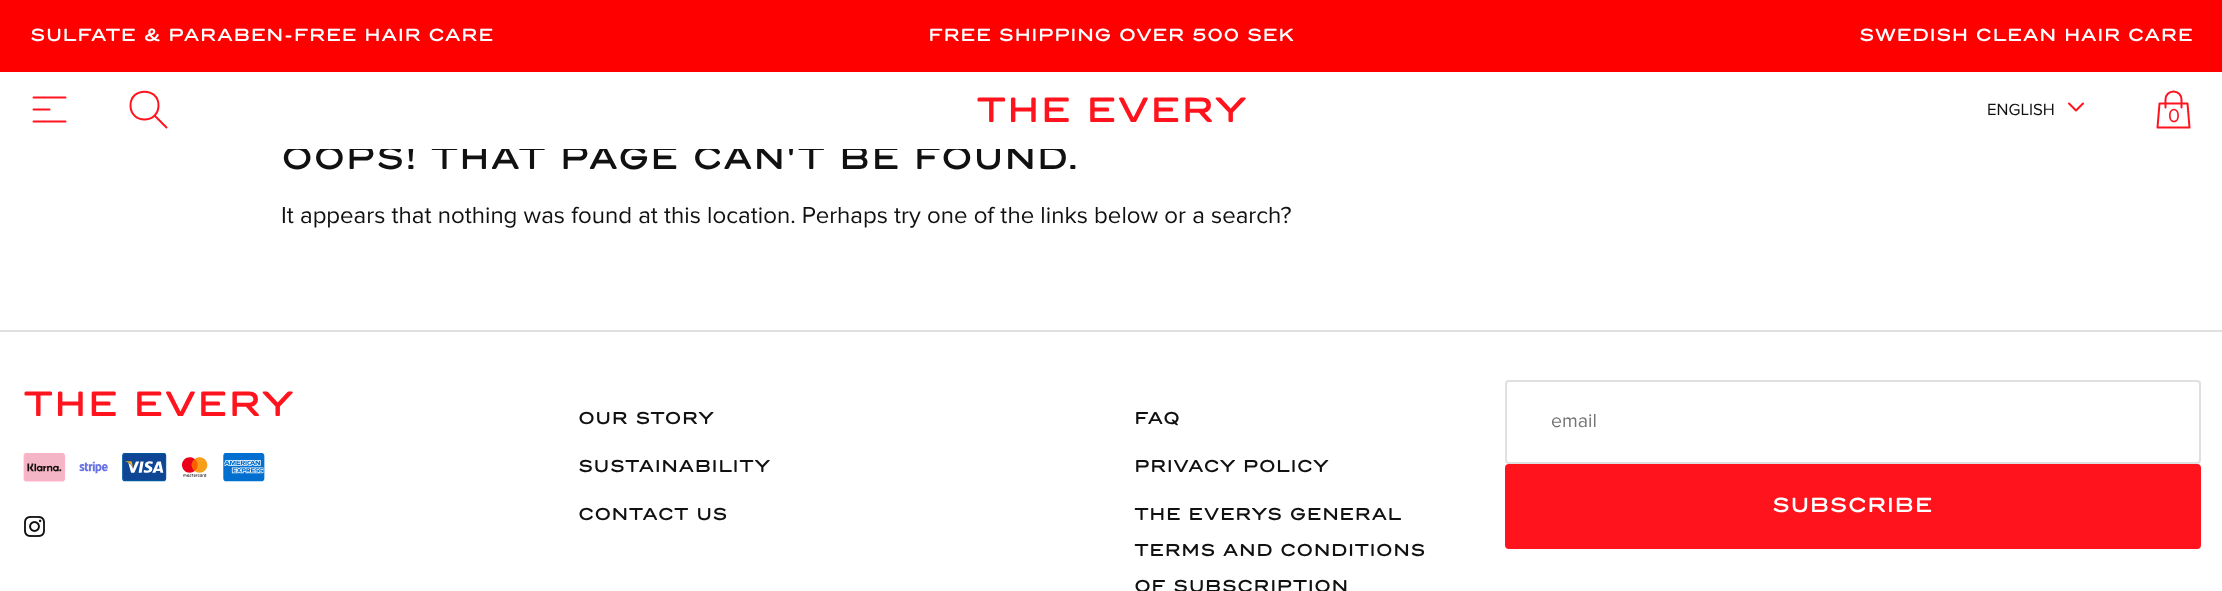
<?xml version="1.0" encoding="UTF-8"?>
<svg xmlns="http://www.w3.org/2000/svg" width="2222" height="591">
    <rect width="100%" height="100%" fill="#FFFFFF"/>
    <text x="281" y="169" font-family="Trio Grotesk" font-size="31.2" font-weight="500" fill="#111111">OOPS! THAT PAGE CAN'T BE FOUND.</text>
    <rect x="287" y="145" width="775" height="4" fill="#FFFFFF"/>
    <rect x="0" y="0" width="2222" height="72" fill="#FF0000"/>
    <text x="30" y="41" font-family="Trio Grotesk" font-size="16.8" font-weight="500" fill="#FFFFFF">SULFATE &amp; PARABEN-FREE HAIR CARE</text>
    <text x="928" y="41" font-family="Trio Grotesk" font-size="16.8" font-weight="500" fill="#FFFFFF">FREE SHIPPING OVER 500 SEK</text>
    <text x="1859" y="41" font-family="Trio Grotesk" font-size="16.8" font-weight="500" fill="#FFFFFF">SWEDISH CLEAN HAIR CARE</text>
    <path d="M 33.5 97.5 H 65.5 M 33.5 109.5 H 49.5 M 33.5 121.5 H 65.5" fill="none" stroke="#FF141E" stroke-width="2" stroke-linecap="round" stroke-linejoin="round"/>
    <path d="M 166.5 127.5 L 154.5 115.5 M 158.5 105.5 C 158.5 124 130.5 124 130.5 105.5 C 130.5 87 158.5 87 158.5 105.5 Z" fill="none" stroke="#FF141E" stroke-width="2" stroke-linecap="round" stroke-linejoin="round"/>
    <text x="976" y="122" font-family="Trio Grotesk" font-size="33.5" font-weight="500" fill="#FF141E">THE EVERY</text>
    <text x="1987" y="115" font-family="Proxima Nova" font-size="16.8" fill="#111111">ENGLISH</text>
    <path d="M 2083 103.5 L 2076 110.5 L 2069 103.5" fill="none" stroke="#FF141E" stroke-width="2" stroke-linecap="round" stroke-linejoin="round"/>
    <path d="M 2181.5 107.5 V 99.5 C 2181.5 95 2178 91.5 2173.5 91.5 C 2169 91.5 2165.5 95 2165.5 99.5 V 107.5 M 2159.5 103.5 H 2187.5 L 2189.5 127.5 H 2157.5 Z" fill="none" stroke="#FF141E" stroke-width="2" stroke-linecap="round" stroke-linejoin="round"/>
    <text x="2168" y="122" font-family="Proxima Nova" font-size="19.5" fill="#FF141E">0</text>
    <text x="281" y="223" font-family="Proxima Nova" font-size="24" fill="#111111">It appears that nothing was found at this location. Perhaps try one of the links below or a search?</text>
    <rect x="0" y="330" width="2222" height="2" fill="#E0E0E0"/>
    <text x="23" y="416" font-family="Trio Grotesk" font-size="33.5" font-weight="500" fill="#FF141E">THE EVERY</text>
    <image x="23" y="453" width="242" height="29" href="img_01.png"/>
    <image x="24" y="516" width="21" height="21" href="img_02.png"/>
    <text x="578" y="424" font-family="Trio Grotesk" font-size="16.5" font-weight="500" fill="#111111">OUR STORY</text>
    <text x="578" y="472" font-family="Trio Grotesk" font-size="16.5" font-weight="500" fill="#111111">SUSTAINABILITY</text>
    <text x="578" y="520" font-family="Trio Grotesk" font-size="16.5" font-weight="500" fill="#111111">CONTACT US</text>
    <text x="1134" y="424" font-family="Trio Grotesk" font-size="16.5" font-weight="500" fill="#111111">FAQ</text>
    <text x="1134" y="472" font-family="Trio Grotesk" font-size="16.5" font-weight="500" fill="#111111">PRIVACY POLICY</text>
    <text x="1134" y="520" font-family="Trio Grotesk" font-size="16.5" font-weight="500" fill="#111111">THE EVERYS GENERAL</text>
    <text x="1134" y="556" font-family="Trio Grotesk" font-size="16.5" font-weight="500" fill="#111111">TERMS AND CONDITIONS</text>
    <text x="1134" y="592" font-family="Trio Grotesk" font-size="16.5" font-weight="500" fill="#111111">OF SUBSCRIPTION</text>
    <rect x="1506" y="381" width="694" height="82" rx="3" fill="none" stroke="#E0E0E0" stroke-width="2"/>
    <text x="1551" y="427" font-family="Proxima Nova" font-size="19.5" fill="#757575">email</text>
    <rect x="1505" y="464" width="696" height="85" rx="4" fill="#FF141E"/>
    <text x="1772" y="512" font-family="Trio Grotesk" font-size="19.5" font-weight="500" fill="#FFFFFF">SUBSCRIBE</text>
</svg>
